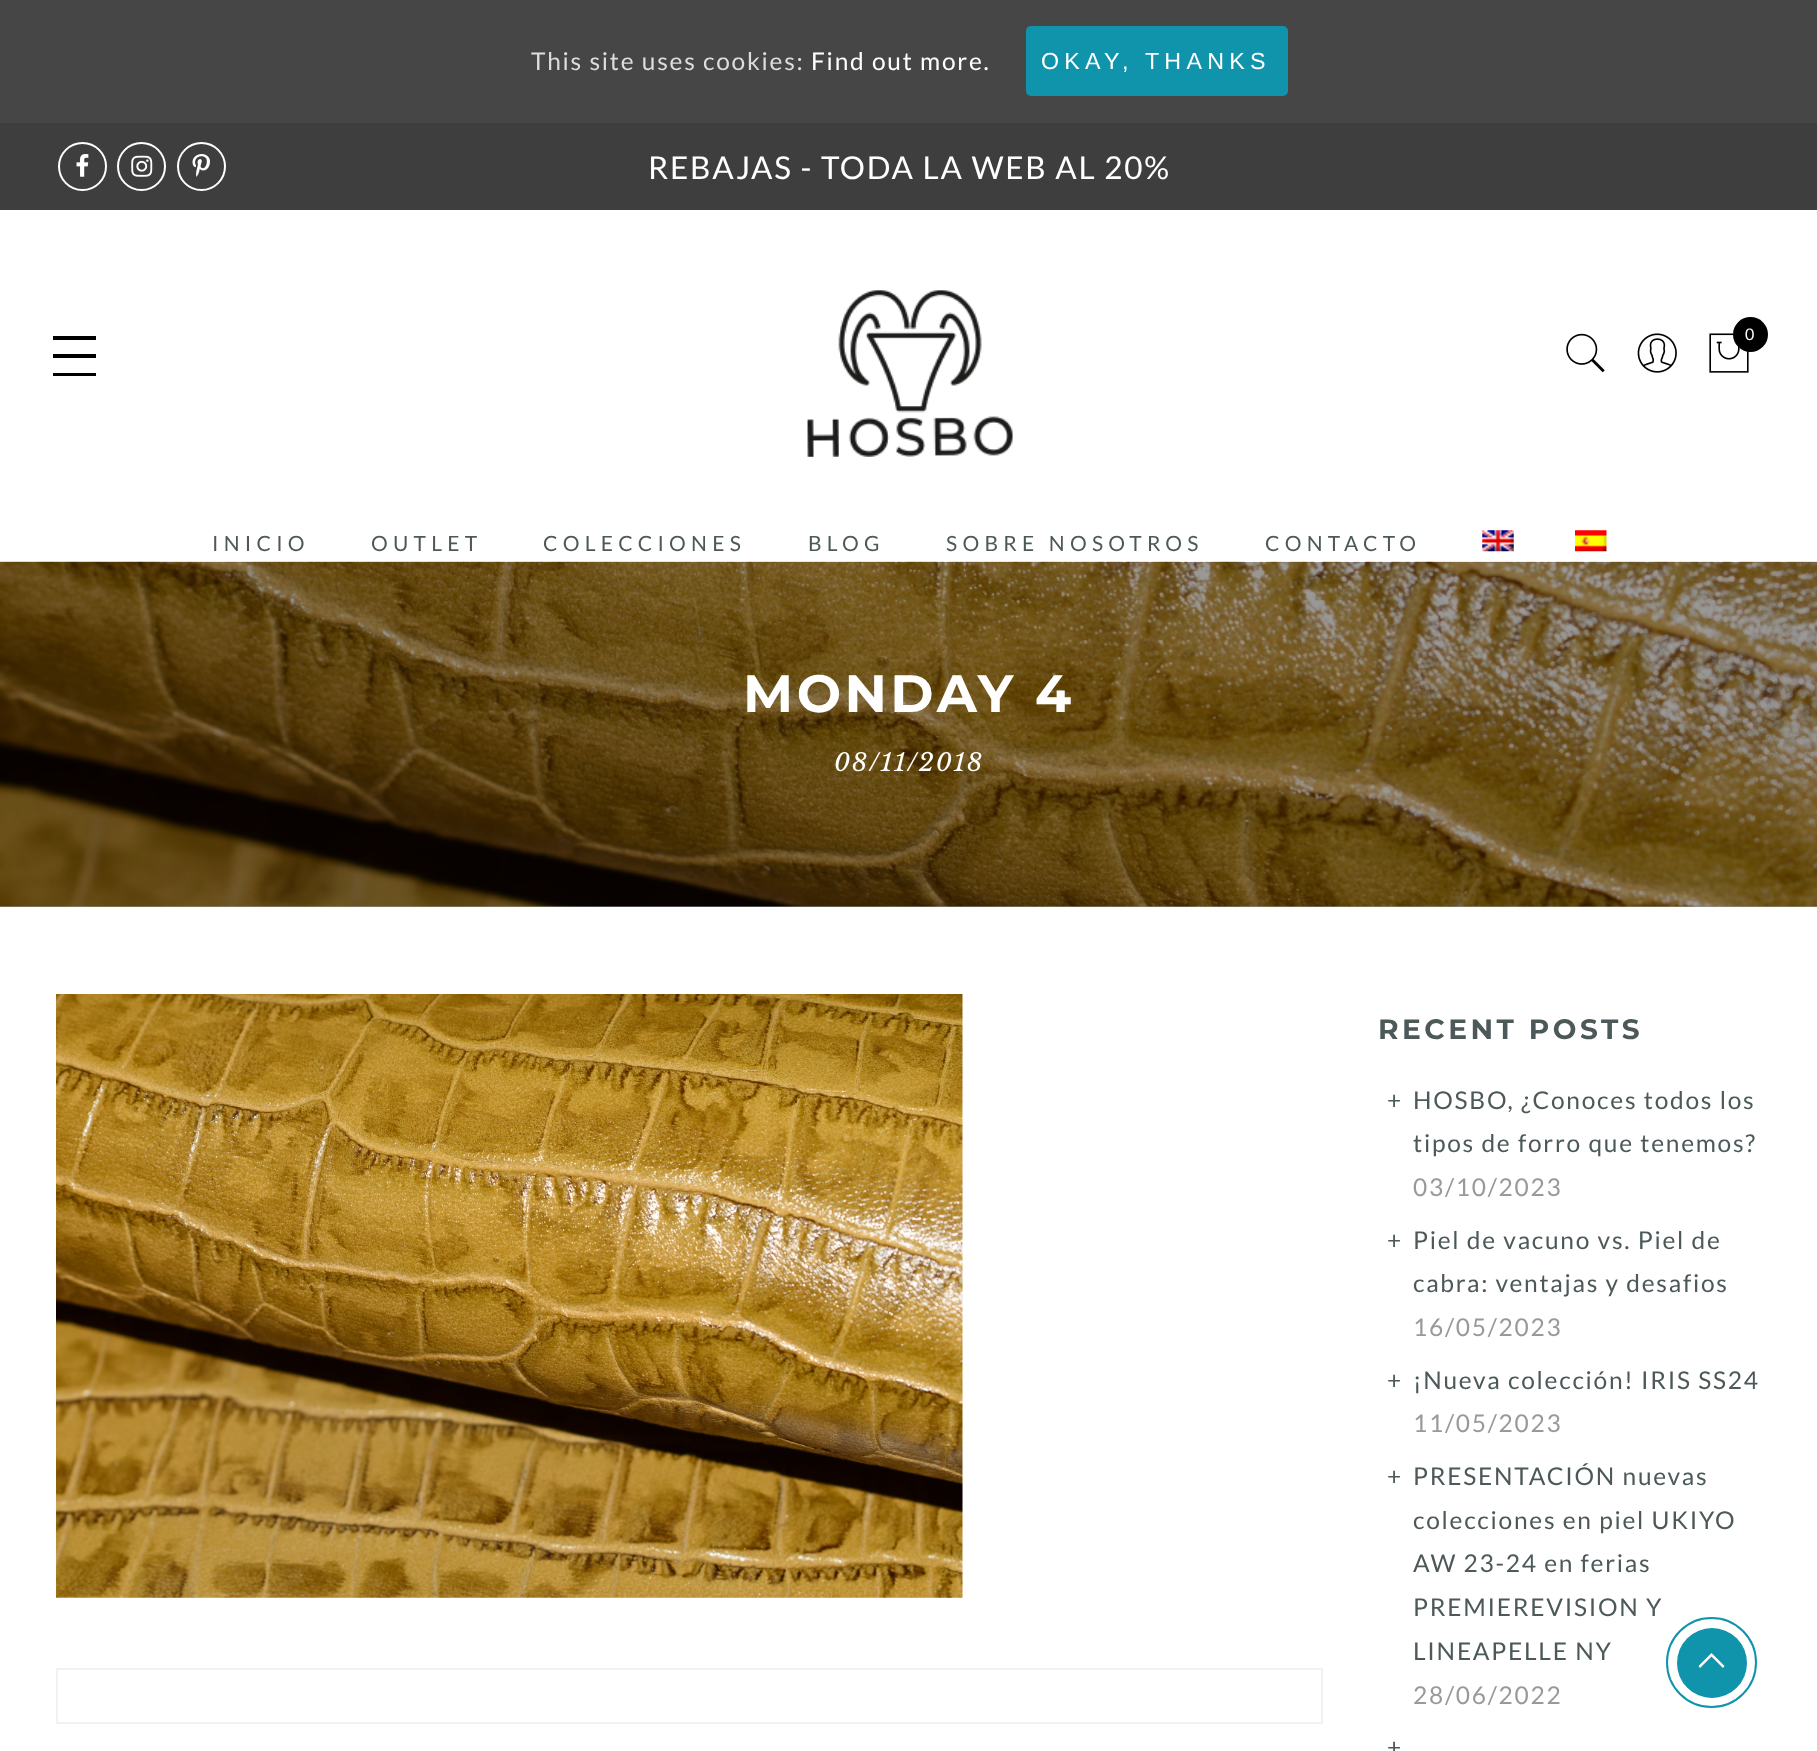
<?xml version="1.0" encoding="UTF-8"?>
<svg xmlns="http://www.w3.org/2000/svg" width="1817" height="1751">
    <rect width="100%" height="100%" fill="#FFFFFF"/>
    <rect x="0" y="906" width="1817" height="1" fill="#999999"/>
    <rect x="0" y="0" width="1817" height="123" fill="#464646"/>
    <text x="531" y="70" font-family="Lato" font-size="24.5" letter-spacing="1.75" fill="#DDDDDD">This site uses cookies:</text>
    <text x="811" y="70" font-family="Lato" font-size="24.5" letter-spacing="1.75" fill="#FFFFFF">Find out more.</text>
    <rect x="1026" y="26" width="262" height="70" rx="5" fill="#1094AC"/>
    <text x="1041" y="69" font-family="Liberation Sans" font-size="23.25" letter-spacing="5.25" fill="#FFFFFF">OKAY, THANKS</text>
    <rect x="0" y="123" width="1817" height="87" fill="#3E3E3E"/>
    <circle cx="82.5" cy="166.5" r="23.5" fill="none" stroke="#FFFFFF" stroke-width="2"/>
    <image x="76" y="154" width="13" height="23" href="img_01.png"/>
    <circle cx="141.5" cy="166.5" r="23.5" fill="none" stroke="#FFFFFF" stroke-width="2"/>
    <image x="131" y="155" width="22" height="22" href="img_02.png"/>
    <circle cx="201.5" cy="166.5" r="23.5" fill="none" stroke="#FFFFFF" stroke-width="2"/>
    <image x="192" y="154" width="18" height="23" href="img_03.png"/>
    <text x="648" y="179" font-family="Lato" font-size="31.5" letter-spacing="1.75" fill="#FFFFFF">REBAJAS - TODA LA WEB AL 20%</text>
    <image x="807" y="290" width="206" height="167" href="img_04.png"/>
    <image x="1566" y="333" width="39" height="40" href="img_05.png"/>
    <image x="1637" y="333" width="40" height="40" href="img_06.png"/>
    <image x="1709" y="333" width="40" height="40" href="img_07.png"/>
    <circle cx="1750.5" cy="334.5" r="17.5" fill="#000000"/>
    <text x="1745" y="340" font-family="Lato" font-size="16" letter-spacing="1.75" fill="#FFFFFF">0</text>
    <rect x="53" y="336" width="43" height="4" fill="#000000"/>
    <rect x="53" y="354" width="43" height="4" fill="#000000"/>
    <rect x="53" y="373" width="43" height="3" fill="#000000"/>
    <text x="212" y="551" font-family="Lato" font-size="21" letter-spacing="5.25" fill="#4D5959">INICIO</text>
    <text x="371" y="551" font-family="Lato" font-size="21" letter-spacing="5.25" fill="#4D5959">OUTLET</text>
    <text x="543" y="551" font-family="Lato" font-size="21" letter-spacing="5.25" fill="#4D5959">COLECCIONES</text>
    <text x="808" y="551" font-family="Lato" font-size="21" letter-spacing="5.25" fill="#4D5959">BLOG</text>
    <text x="946" y="551" font-family="Lato" font-size="21" letter-spacing="5.25" fill="#4D5959">SOBRE NOSOTROS</text>
    <text x="1265" y="551" font-family="Lato" font-size="21" letter-spacing="5.25" fill="#4D5959">CONTACTO</text>
    <image x="1482" y="530" width="32" height="22" href="img_08.png"/>
    <image x="1575" y="530" width="32" height="22" href="img_09.png"/>
    <image x="0" y="561" width="1817" height="346" href="img_10.png"/>
    <text x="743" y="712" font-family="Montserrat" font-size="52.5" font-weight="700" letter-spacing="3.5" fill="#FFFFFF">MONDAY 4</text>
    <text x="834" y="771" font-family="Libre Baskerville" font-size="24.5" font-style="italic" letter-spacing="1.75" fill="#FFFFFF">08/11/2018</text>
    <image x="56" y="994" width="907" height="604" href="img_11.png"/>
    <rect x="57" y="1669" width="1265" height="54" fill="none" stroke="#F1F1F1" stroke-width="2"/>
    <text x="1378" y="1039" font-family="Montserrat" font-size="28" font-weight="700" letter-spacing="3.5" fill="#4D5959">RECENT POSTS</text>
    <text x="1387" y="1109" font-family="Lato" font-size="24.5" letter-spacing="1.75" fill="#4D5959">+</text>
    <text font-family="Lato" font-size="24.5" letter-spacing="1.75" fill="#4D5959">
        <tspan x="1413" y="1109">HOSBO, ¿Conoces todos los</tspan>
        <tspan x="1413" y="1152">tipos de forro que tenemos?</tspan>
    </text>
    <text x="1413" y="1196" font-family="Lato" font-size="24.5" letter-spacing="1.75" fill="#999999">03/10/2023</text>
    <text x="1387" y="1249" font-family="Lato" font-size="24.5" letter-spacing="1.75" fill="#4D5959">+</text>
    <text font-family="Lato" font-size="24.5" letter-spacing="1.75" fill="#4D5959">
        <tspan x="1413" y="1249">Piel de vacuno vs. Piel de</tspan>
        <tspan x="1413" y="1292">cabra: ventajas y desafios</tspan>
    </text>
    <text x="1413" y="1336" font-family="Lato" font-size="24.5" letter-spacing="1.75" fill="#999999">16/05/2023</text>
    <text x="1387" y="1389" font-family="Lato" font-size="24.5" letter-spacing="1.75" fill="#4D5959">+</text>
    <text x="1413" y="1389" font-family="Lato" font-size="24.5" letter-spacing="1.75" fill="#4D5959">¡Nueva colección! IRIS SS24</text>
    <text x="1413" y="1432" font-family="Lato" font-size="24.5" letter-spacing="1.75" fill="#999999">11/05/2023</text>
    <text x="1387" y="1485" font-family="Lato" font-size="24.5" letter-spacing="1.75" fill="#4D5959">+</text>
    <text font-family="Lato" font-size="24.5" letter-spacing="1.75" fill="#4D5959">
        <tspan x="1413" y="1485">PRESENTACIÓN nuevas</tspan>
        <tspan x="1413" y="1529">colecciones en piel UKIYO</tspan>
        <tspan x="1413" y="1572">AW 23-24 en ferias</tspan>
        <tspan x="1413" y="1616">PREMIEREVISION Y</tspan>
        <tspan x="1413" y="1660">LINEAPELLE NY</tspan>
    </text>
    <text x="1413" y="1704" font-family="Lato" font-size="24.5" letter-spacing="1.75" fill="#999999">28/06/2022</text>
    <text x="1387" y="1756" font-family="Lato" font-size="24.5" letter-spacing="1.75" fill="#4D5959">+</text>
    <circle cx="1711.5" cy="1662.5" r="44.5" fill="none" stroke="#1094AC" stroke-width="2"/>
    <circle cx="1712" cy="1663" r="35" fill="#1094AC"/>
    <path d="M 1713 1654.5 L 1711.5 1653 L 1698.5 1666 L 1700 1668 L 1711.5 1656.5 L 1723 1668 L 1724.5 1666 Z" fill="#FFFFFF"/>
</svg>
